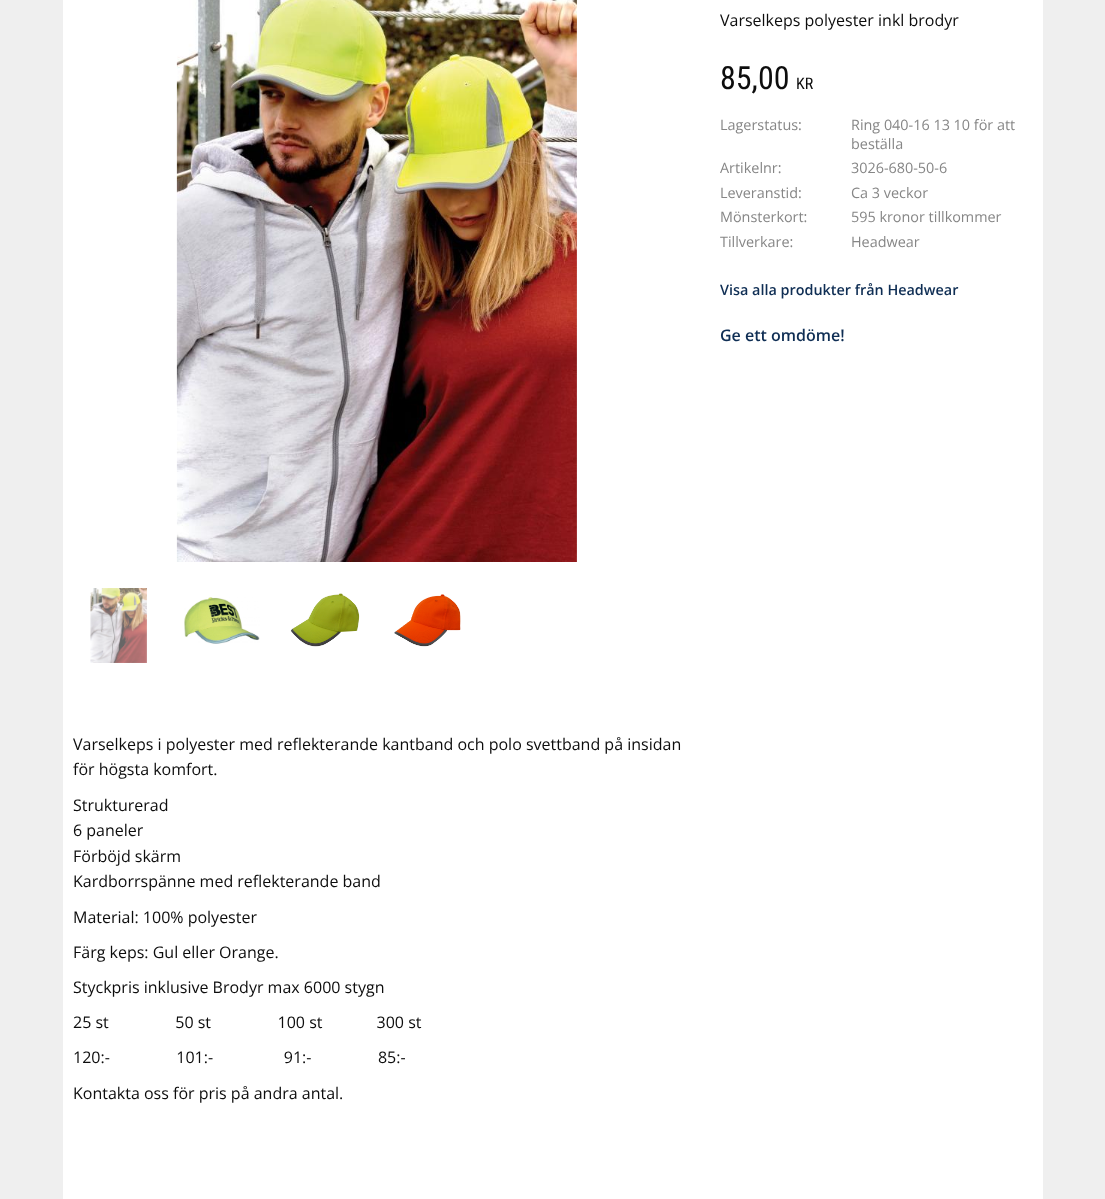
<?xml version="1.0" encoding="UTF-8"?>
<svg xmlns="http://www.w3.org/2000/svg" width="1105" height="1199">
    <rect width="100%" height="100%" fill="#EFEFEF"/>
    <rect x="63" y="0" width="980" height="1199" fill="#FFFFFF"/>
    <text x="720" y="26" font-family="Open Sans" font-size="16" fill="#0D0D0D">Varselkeps polyester inkl brodyr</text>
    <image x="176" y="0" width="401" height="562" href="img_01.png"/>
    <image x="90" y="588" width="57" height="75" href="img_02.png"/>
    <image x="184" y="597" width="76" height="47" href="img_03.png"/>
    <image x="290" y="593" width="70" height="54" href="img_04.png"/>
    <image x="394" y="594" width="67" height="53" href="img_05.png"/>
    <text x="720" y="89" font-family="Roboto Condensed" font-size="32" fill="#0D0D0D">85,00</text>
    <text x="796" y="89" font-family="Roboto Condensed" font-size="16" fill="#0D0D0D">KR</text>
    <text x="720" y="130" font-family="Open Sans" font-size="14.4" fill="#868686">Lagerstatus:</text>
    <text font-family="Open Sans" font-size="14.4" fill="#868686">
        <tspan x="851" y="130">Ring 040-16 13 10 för att</tspan>
        <tspan x="851" y="149">beställa</tspan>
    </text>
    <text x="720" y="173" font-family="Open Sans" font-size="14.4" fill="#868686">Artikelnr:</text>
    <text x="851" y="173" font-family="Open Sans" font-size="14.4" fill="#868686">3026-680-50-6</text>
    <text x="720" y="198" font-family="Open Sans" font-size="14.4" fill="#868686">Leveranstid:</text>
    <text x="851" y="198" font-family="Open Sans" font-size="14.4" fill="#868686">Ca 3 veckor</text>
    <text x="720" y="222" font-family="Open Sans" font-size="14.4" fill="#868686">Mönsterkort:</text>
    <text x="851" y="222" font-family="Open Sans" font-size="14.4" fill="#868686">595 kronor tillkommer</text>
    <text x="720" y="247" font-family="Open Sans" font-size="14.4" fill="#868686">Tillverkare:</text>
    <text x="851" y="247" font-family="Open Sans" font-size="14.4" fill="#868686">Headwear</text>
    <text x="720" y="295" font-family="Open Sans" font-size="14.4" font-weight="600" fill="#0F2E54">Visa alla produkter från Headwear</text>
    <text x="720" y="341" font-family="Open Sans" font-size="16" font-weight="600" fill="#0F2E54">Ge ett omdöme!</text>
    <text font-family="Open Sans" font-size="16" fill="#0D0D0D">
        <tspan x="73" y="750">Varselkeps i polyester med reflekterande kantband och polo svettband på insidan</tspan>
        <tspan x="73" y="775">för högsta komfort.</tspan>
    </text>
    <text font-family="Open Sans" font-size="16" fill="#0D0D0D">
        <tspan x="73" y="811">Strukturerad</tspan>
        <tspan x="73" y="836">6 paneler</tspan>
        <tspan x="73" y="862">Förböjd skärm</tspan>
        <tspan x="73" y="887">Kardborrspänne med reflekterande band</tspan>
    </text>
    <text x="73" y="923" font-family="Open Sans" font-size="16" fill="#0D0D0D">Material: 100% polyester</text>
    <text x="73" y="958" font-family="Open Sans" font-size="16" fill="#0D0D0D">Färg keps: Gul eller Orange.</text>
    <text x="73" y="993" font-family="Open Sans" font-size="16" fill="#0D0D0D">Styckpris inklusive Brodyr max 6000 stygn</text>
    <text x="73" y="1028" font-family="Open Sans" font-size="16" fill="#0D0D0D" xml:space="preserve">25 st                50 st                100 st             300 st</text>
    <text x="73" y="1063" font-family="Open Sans" font-size="16" fill="#0D0D0D" xml:space="preserve">120:-                101:-                 91:-                85:-</text>
    <text x="73" y="1099" font-family="Open Sans" font-size="16" fill="#0D0D0D">Kontakta oss för pris på andra antal.</text>
</svg>
